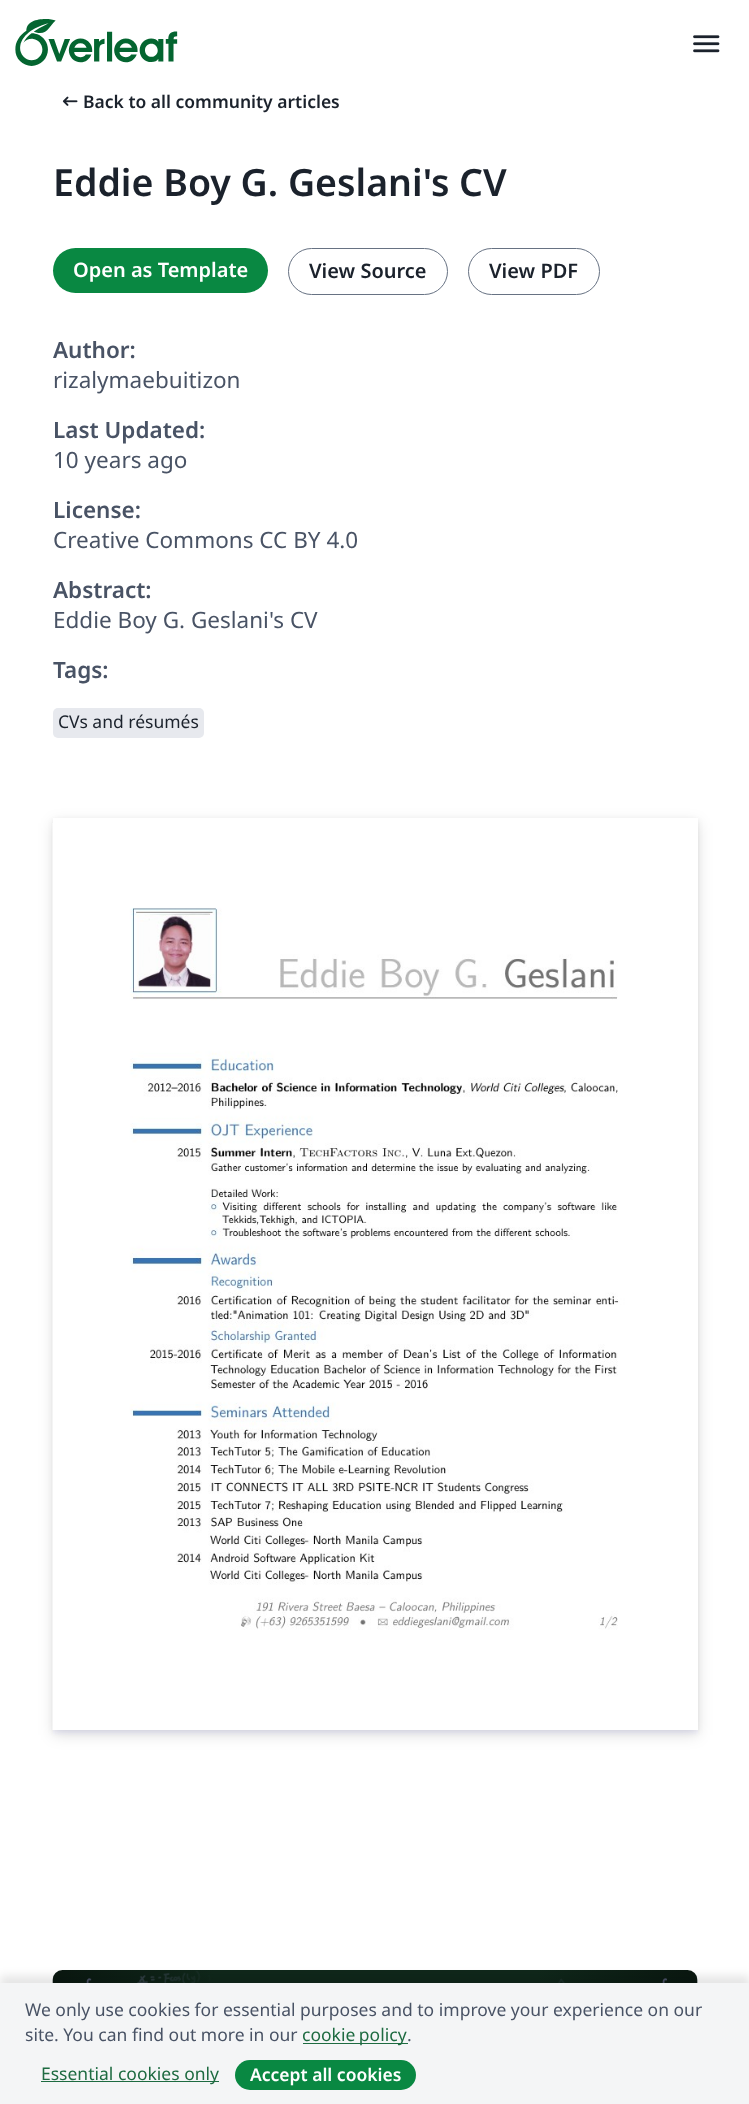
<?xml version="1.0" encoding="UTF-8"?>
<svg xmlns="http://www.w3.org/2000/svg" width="749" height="2104">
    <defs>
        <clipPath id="clip1"><path d="M 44 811 H 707 V 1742 H 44 Z M 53 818 H 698 V 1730 H 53 Z" clip-rule="evenodd"/></clipPath>
        <filter id="blur1" x="-50%" y="-200%" width="200%" height="500%"><feGaussianBlur stdDeviation="2.5"/></filter>
        <clipPath id="clip2"><path d="M 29 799 H 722 V 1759 H 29 Z M 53 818 H 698 V 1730 H 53 Z" clip-rule="evenodd"/></clipPath>
        <filter id="blur2" x="-50%" y="-200%" width="200%" height="500%"><feGaussianBlur stdDeviation="7.5"/></filter>
        <filter id="blur3" x="-50%" y="-200%" width="200%" height="500%"><feGaussianBlur stdDeviation="5"/></filter>
    </defs>
    <rect width="100%" height="100%" fill="#FFFFFF"/>
    <image x="15" y="19" width="163" height="47" href="img_01.png"/>
    <image x="693" y="35" width="27" height="18" href="img_02.png"/>
    <image x="62" y="96" width="16" height="10" href="img_03.png"/>
    <text x="83" y="108" font-family="Noto Sans" font-size="17.5" font-weight="600" fill="#1B222C">Back to all community articles</text>
    <text x="53" y="196" font-family="Noto Sans" font-size="37.5" font-weight="600" fill="#1B222C">Eddie Boy G. Geslani's CV</text>
    <rect x="53" y="248" width="215" height="45" rx="22.5" fill="#098842"/>
    <text x="73" y="277" font-family="Noto Sans" font-size="20" font-weight="600" fill="#FFFFFF">Open as Template</text>
    <rect x="288.5" y="248.5" width="159" height="46" rx="23" fill="none" stroke="#677283"/>
    <text x="309" y="278" font-family="Noto Sans" font-size="20" font-weight="600" fill="#1B222C">View Source</text>
    <rect x="468.5" y="248.5" width="131" height="46" rx="23" fill="none" stroke="#677283"/>
    <text x="489" y="278" font-family="Noto Sans" font-size="20" font-weight="600" fill="#1B222C">View PDF</text>
    <text x="53" y="358" font-family="Noto Sans" font-size="22.5" font-weight="600" fill="#495365">Author:</text>
    <text x="53" y="388" font-family="Noto Sans" font-size="22.5" fill="#495365">rizalymaebuitizon</text>
    <text x="53" y="438" font-family="Noto Sans" font-size="22.5" font-weight="600" fill="#495365">Last Updated:</text>
    <text x="53" y="468" font-family="Noto Sans" font-size="22.5" fill="#495365">10 years ago</text>
    <text x="53" y="518" font-family="Noto Sans" font-size="22.5" font-weight="600" fill="#495365">License:</text>
    <text x="53" y="548" font-family="Noto Sans" font-size="22.5" fill="#495365">Creative Commons CC BY 4.0</text>
    <text x="53" y="598" font-family="Noto Sans" font-size="22.5" font-weight="600" fill="#495365">Abstract:</text>
    <text x="53" y="628" font-family="Noto Sans" font-size="22.5" fill="#495365">Eddie Boy G. Geslani's CV</text>
    <text x="53" y="678" font-family="Noto Sans" font-size="22.5" font-weight="600" fill="#495365">Tags:</text>
    <rect x="53" y="708" width="151" height="30" rx="5" fill="#E7E9EE"/>
    <text x="58" y="728" font-family="Noto Sans" font-size="17.5" fill="#1B222C">CVs and résumés</text>
    <g clip-path="url(#clip1)">
        <rect x="53" y="820" width="645" height="913" fill="#1E2530" fill-opacity="0.08" filter="url(#blur1)"/>
    </g>
    <g clip-path="url(#clip2)">
        <rect x="53" y="823" width="645" height="912" fill="#1E2530" fill-opacity="0.12" filter="url(#blur2)"/>
    </g>
    <image x="52" y="823" width="646" height="907" href="img_04.png"/>
    <rect x="53" y="1970" width="645" height="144" rx="10" fill="#F4F5F6"/>
    <image x="52" y="1970" width="646" height="13" href="img_05.png"/>
    <rect x="0" y="1976" width="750" height="123" fill="#000000" fill-opacity="0.1" filter="url(#blur3)"/>
    <rect x="0" y="1983" width="749" height="121" fill="#F4F5F6"/>
    <text font-family="Noto Sans" font-size="17.5" fill="#495365">
        <tspan x="25" y="2016">We only use cookies for essential purposes and to improve your experience on our</tspan>
        <tspan x="25" y="2041">site. You can find out more in our</tspan>
    </text>
    <rect x="303" y="2043" width="105" height="1" fill="#1E6B41"/>
    <text x="302" y="2041" word-spacing="-1" font-family="Noto Sans" font-size="17.5" fill="#1E6B41">cookie policy</text>
    <text x="407" y="2041" font-family="Noto Sans" font-size="17.5" fill="#495365">.</text>
    <rect x="41" y="2081" width="178" height="1" fill="#1E6B41"/>
    <text x="41" y="2080" font-family="Noto Sans" font-size="17.5" fill="#1E6B41">Essential cookies only</text>
    <rect x="235" y="2060" width="181" height="30" rx="15" fill="#098842"/>
    <text x="250" y="2081" font-family="Noto Sans" font-size="17.5" font-weight="600" fill="#FFFFFF">Accept all cookies</text>
</svg>
